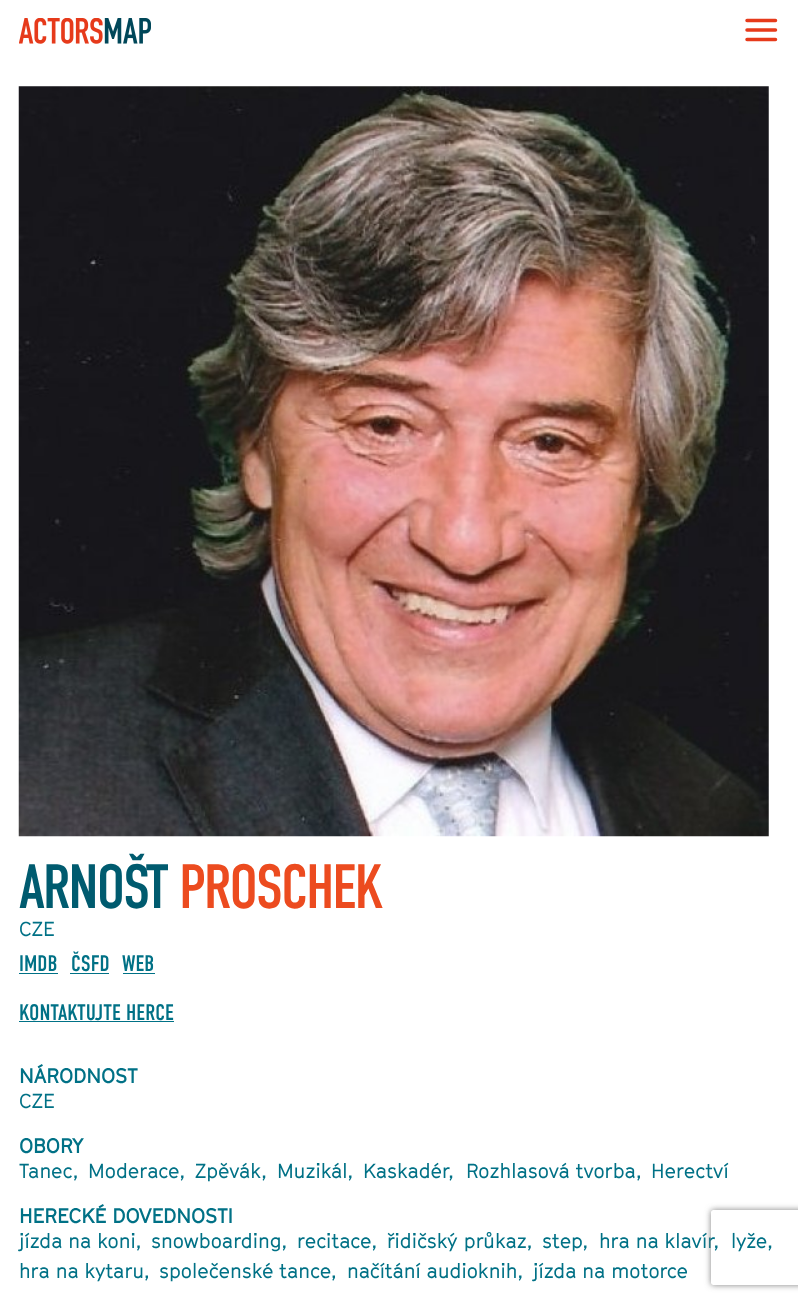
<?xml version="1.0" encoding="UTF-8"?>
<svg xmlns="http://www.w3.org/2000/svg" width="798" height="1302">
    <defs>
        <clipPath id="clip1"><path d="M 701 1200 H 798 V 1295 H 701 Z M 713.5 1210 H 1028.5 C 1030 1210 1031 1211 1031 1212.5 V 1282.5 C 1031 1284 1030 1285 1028.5 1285 H 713.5 C 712 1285 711 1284 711 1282.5 V 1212.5 C 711 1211 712 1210 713.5 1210 Z" clip-rule="evenodd"/></clipPath>
        <filter id="blur1" x="-50%" y="-200%" width="200%" height="500%"><feGaussianBlur stdDeviation="3"/></filter>
    </defs>
    <rect width="100%" height="100%" fill="#FFFFFF"/>
    <image x="19" y="18" width="132" height="26" href="img_01.png"/>
    <path d="M 747 20.5 H 775.5 M 747 30 H 775.5 M 747 39.5 H 775.5" fill="none" stroke="#E63A1B" stroke-width="3.5" stroke-linecap="round"/>
    <image x="18" y="86" width="751" height="751" href="img_02.png"/>
    <text x="19" y="908" font-family="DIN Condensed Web" font-size="62.5" letter-spacing="-2.25" fill="#005B6F">ARNOŠT</text>
    <text x="179" y="908" font-family="DIN Condensed Web" font-size="62.5" letter-spacing="-2.25" fill="#EC4B1F">PROSCHEK</text>
    <text x="19" y="936" font-family="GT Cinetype" font-size="20" fill="#007186">CZE</text>
    <text x="19" y="971" font-family="DIN Condensed Web" font-size="22.5" fill="#007186">IMDB</text>
    <rect x="19" y="973" width="39" height="1" fill="#007186"/>
    <text x="71" y="971" font-family="DIN Condensed Web" font-size="22.5" fill="#007186">ČSFD</text>
    <rect x="70" y="973" width="39" height="1" fill="#007186"/>
    <text x="122" y="971" font-family="DIN Condensed Web" font-size="22.5" fill="#007186">WEB</text>
    <rect x="123" y="973" width="32" height="1" fill="#007186"/>
    <text x="19" y="1020" font-family="DIN Condensed Web" font-size="22.5" fill="#007186">KONTAKTUJTE HERCE</text>
    <rect x="19" y="1021" width="155" height="1" fill="#007186"/>
    <text x="19" y="1083" font-family="GT Cinetype" font-size="20" font-weight="700" fill="#007186">NÁRODNOST</text>
    <text x="19" y="1108" font-family="GT Cinetype" font-size="20" fill="#007186">CZE</text>
    <text x="19" y="1153" font-family="GT Cinetype" font-size="20" font-weight="700" fill="#007186">OBORY</text>
    <text x="19" y="1178" font-family="GT Cinetype" font-size="20" fill="#007186">Tanec,</text>
    <text x="88" y="1178" font-family="GT Cinetype" font-size="20" fill="#007186">Moderace,</text>
    <text x="195" y="1178" font-family="GT Cinetype" font-size="20" fill="#007186">Zpěvák,</text>
    <text x="277" y="1178" font-family="GT Cinetype" font-size="20" fill="#007186">Muzikál,</text>
    <text x="363" y="1178" font-family="GT Cinetype" font-size="20" fill="#007186">Kaskadér,</text>
    <text x="466" y="1178" font-family="GT Cinetype" font-size="20" fill="#007186">Rozhlasová tvorba,</text>
    <text x="651" y="1178" font-family="GT Cinetype" font-size="20" fill="#007186">Herectví</text>
    <text x="19" y="1223" font-family="GT Cinetype" font-size="20" font-weight="700" fill="#007186">HERECKÉ DOVEDNOSTI</text>
    <text x="19" y="1248" font-family="GT Cinetype" font-size="20" fill="#007186">jízda na koni,</text>
    <text x="151" y="1248" font-family="GT Cinetype" font-size="20" fill="#007186">snowboarding,</text>
    <text x="297" y="1248" font-family="GT Cinetype" font-size="20" fill="#007186">recitace,</text>
    <text x="387" y="1248" font-family="GT Cinetype" font-size="20" fill="#007186">řidičský průkaz,</text>
    <text x="542" y="1248" font-family="GT Cinetype" font-size="20" fill="#007186">step,</text>
    <text x="599" y="1248" font-family="GT Cinetype" font-size="20" fill="#007186">hra na klavír,</text>
    <text x="731" y="1248" font-family="GT Cinetype" font-size="20" fill="#007186">lyže,</text>
    <text x="19" y="1278" font-family="GT Cinetype" font-size="20" fill="#007186">hra na kytaru,</text>
    <text x="159" y="1278" font-family="GT Cinetype" font-size="20" fill="#007186">společenské tance,</text>
    <text x="347" y="1278" font-family="GT Cinetype" font-size="20" fill="#007186">načítání audioknih,</text>
    <text x="533" y="1278" font-family="GT Cinetype" font-size="20" fill="#007186">jízda na motorce</text>
    <g clip-path="url(#clip1)">
        <rect x="711" y="1210" width="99" height="75" rx="2.5" fill="#808080" filter="url(#blur1)"/>
    </g>
</svg>
